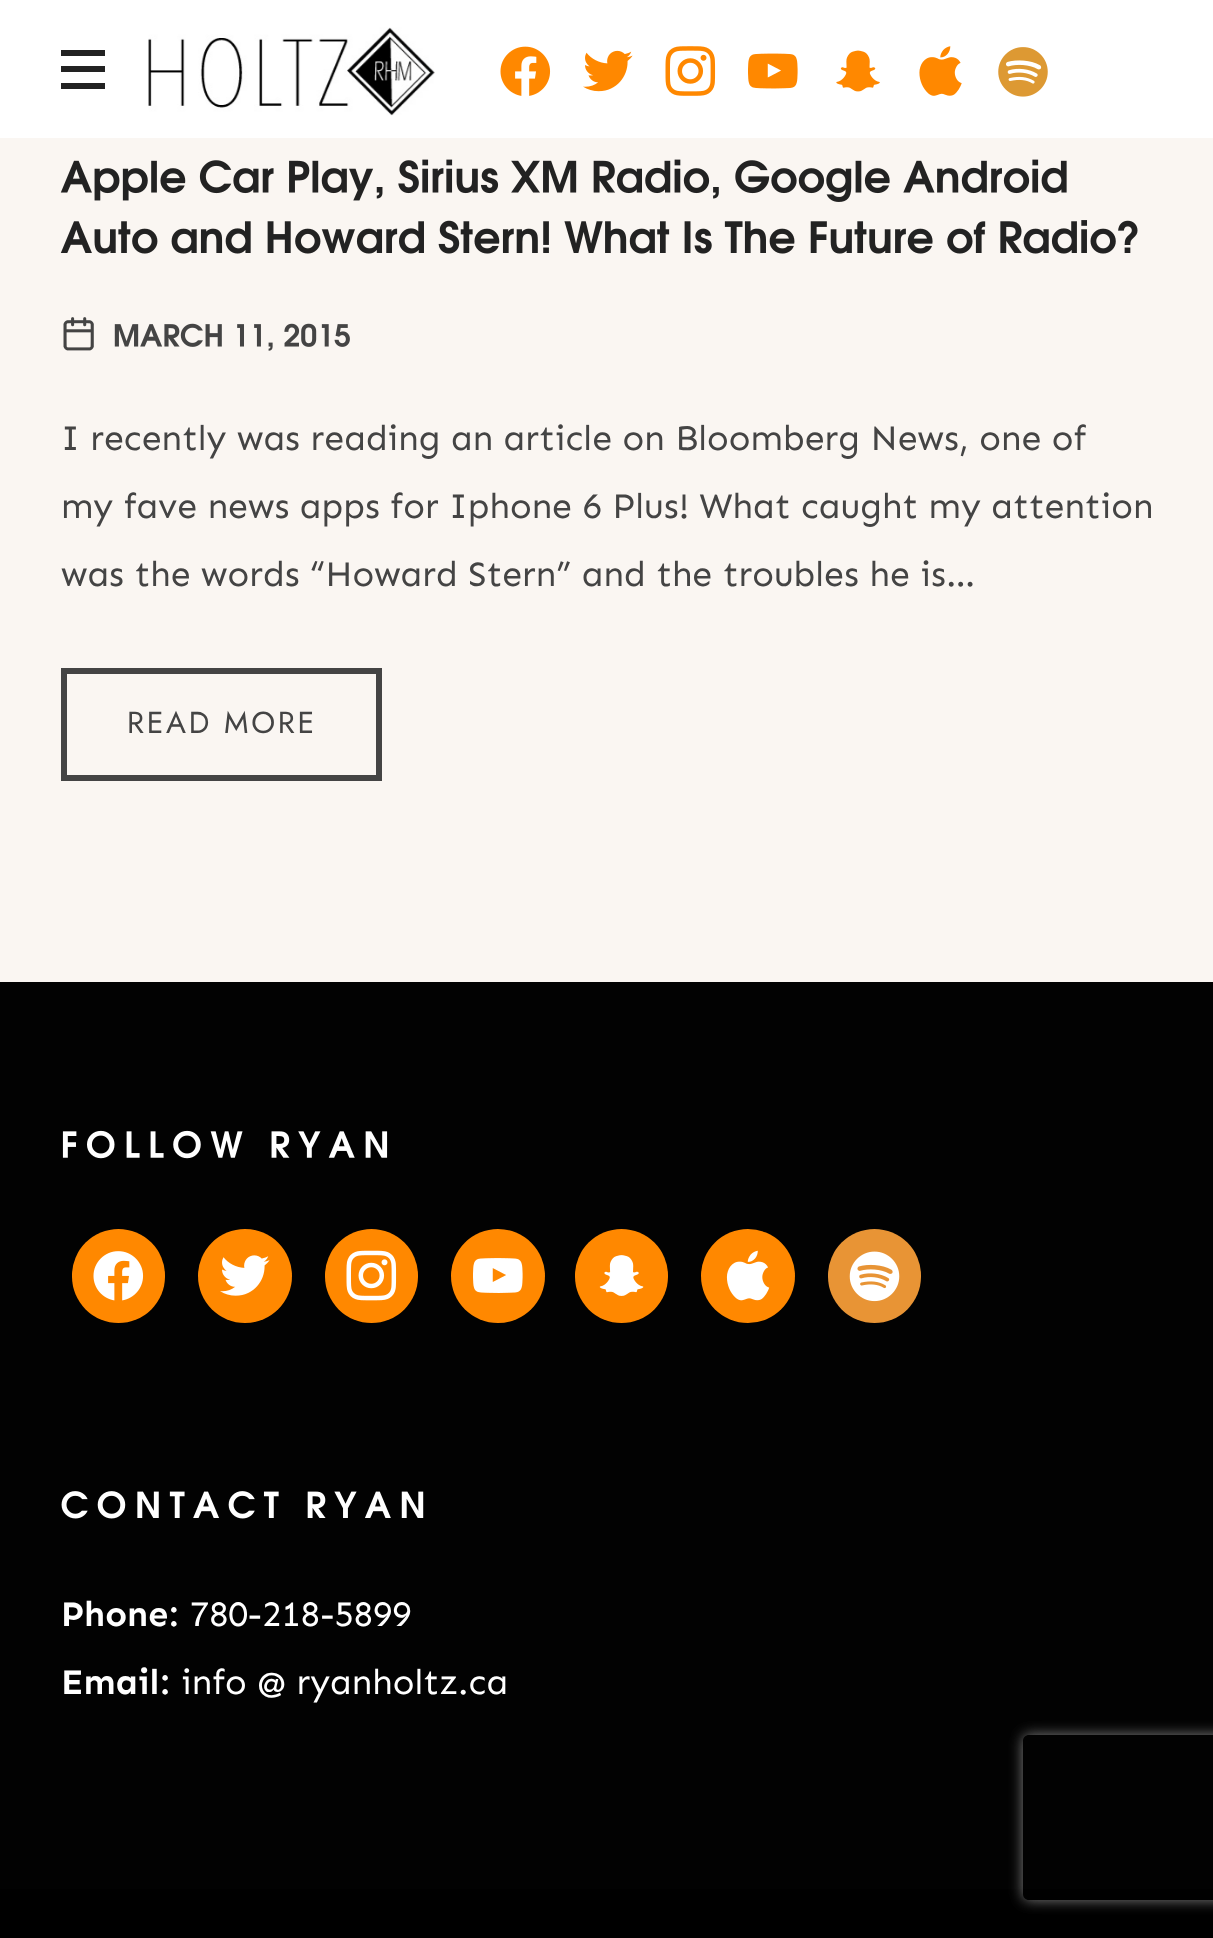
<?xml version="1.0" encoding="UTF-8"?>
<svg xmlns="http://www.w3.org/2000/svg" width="1213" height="1938">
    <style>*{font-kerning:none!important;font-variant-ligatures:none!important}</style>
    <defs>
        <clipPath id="clip1"><path d="M 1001 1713 H 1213 V 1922 H 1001 Z M 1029 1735 H 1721 C 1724.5 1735 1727 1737.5 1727 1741 V 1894 C 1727 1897.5 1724.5 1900 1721 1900 H 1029 C 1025.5 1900 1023 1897.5 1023 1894 V 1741 C 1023 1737.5 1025.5 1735 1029 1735 Z" clip-rule="evenodd"/></clipPath>
        <filter id="blur1" x="-50%" y="-200%" width="200%" height="500%"><feGaussianBlur stdDeviation="7"/></filter>
    </defs>
    <rect width="100%" height="100%" fill="#FAF6F2"/>
    <rect x="0" y="0" width="1213" height="138" fill="#FFFFFF"/>
    <image x="148" y="27" width="287" height="89" href="img_01.png"/>
    <rect x="61" y="66" width="44" height="6" fill="#222222"/>
    <rect x="61" y="50" width="44" height="6" fill="#222222"/>
    <rect x="61" y="83" width="44" height="6" fill="#222222"/>
    <image x="500" y="46" width="51" height="50" href="img_02.png"/>
    <image x="583" y="50" width="50" height="42" href="img_03.png"/>
    <image x="665" y="46" width="51" height="50" href="img_04.png"/>
    <image x="748" y="53" width="50" height="36" href="img_05.png"/>
    <image x="836" y="50" width="44" height="42" href="img_06.png"/>
    <image x="919" y="46" width="43" height="50" href="img_07.png"/>
    <image x="998" y="47" width="50" height="50" href="img_08.png"/>
    <image x="60" y="159" width="1007" height="43" href="img_09.png"/>
    <image x="60" y="220" width="1078" height="34" href="img_10.png"/>
    <image x="63" y="317" width="31" height="34" href="img_11.png"/>
    <image x="114" y="323" width="236" height="28" href="img_12.png"/>
    <text font-family="Sen" font-size="35.75" fill="#444444">
        <tspan x="61" y="450">  I recently was reading an article on Bloomberg News, one of</tspan>
        <tspan x="61" y="518">my fave news apps for Iphone 6 Plus! What caught my attention</tspan>
        <tspan x="61" y="586">was the words “Howard Stern” and the troubles he is…</tspan>
    </text>
    <rect x="64" y="671" width="315" height="107" fill="none" stroke="#444444" stroke-width="6"/>
    <text x="127" y="733" font-family="Jost" font-size="30.25" letter-spacing="2.75" fill="#444444">READ MORE</text>
    <rect x="0" y="982" width="1213" height="907" fill="#020202"/>
    <image x="62" y="1130" width="326" height="29" href="img_13.png"/>
    <rect x="72" y="1229" width="93" height="94" rx="46.5" fill="#FF8800"/>
    <image x="93" y="1251" width="51" height="50" href="img_14.png"/>
    <circle cx="245" cy="1276" r="47" fill="#FF8800"/>
    <image x="220" y="1255" width="50" height="41" href="img_15.png"/>
    <rect x="325" y="1229" width="93" height="94" rx="46.5" fill="#FF8800"/>
    <image x="346" y="1250" width="51" height="51" href="img_16.png"/>
    <circle cx="498" cy="1276" r="47" fill="#FF8800"/>
    <image x="473" y="1258" width="50" height="35" href="img_17.png"/>
    <rect x="575" y="1229" width="93" height="94" rx="46.5" fill="#FF8800"/>
    <image x="599" y="1255" width="45" height="41" href="img_18.png"/>
    <circle cx="748" cy="1276" r="47" fill="#FF8800"/>
    <image x="726" y="1250" width="44" height="51" href="img_19.png"/>
    <rect x="828" y="1229" width="93" height="94" rx="46.5" fill="#E89435"/>
    <image x="849" y="1251" width="51" height="51" href="img_20.png"/>
    <image x="61" y="1491" width="363" height="28" href="img_21.png"/>
    <text x="61" y="1626" font-family="Sen" font-size="35.75" font-weight="700" fill="#FFFFFF">Phone:</text>
    <text x="190" y="1626" font-family="Sen" font-size="35.75" fill="#FFFFFF">780-218-5899</text>
    <text x="61" y="1694" font-family="Sen" font-size="35.75" font-weight="700" fill="#FFFFFF">Email:</text>
    <text x="181" y="1694" font-family="Sen" font-size="35.75" fill="#FFFFFF">info @ ryanholtz.ca</text>
    <rect x="0" y="1889" width="1213" height="49" fill="#000000"/>
    <g clip-path="url(#clip1)">
        <rect x="1023" y="1735" width="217" height="165" rx="6" fill="#808080" filter="url(#blur1)"/>
    </g>
</svg>
